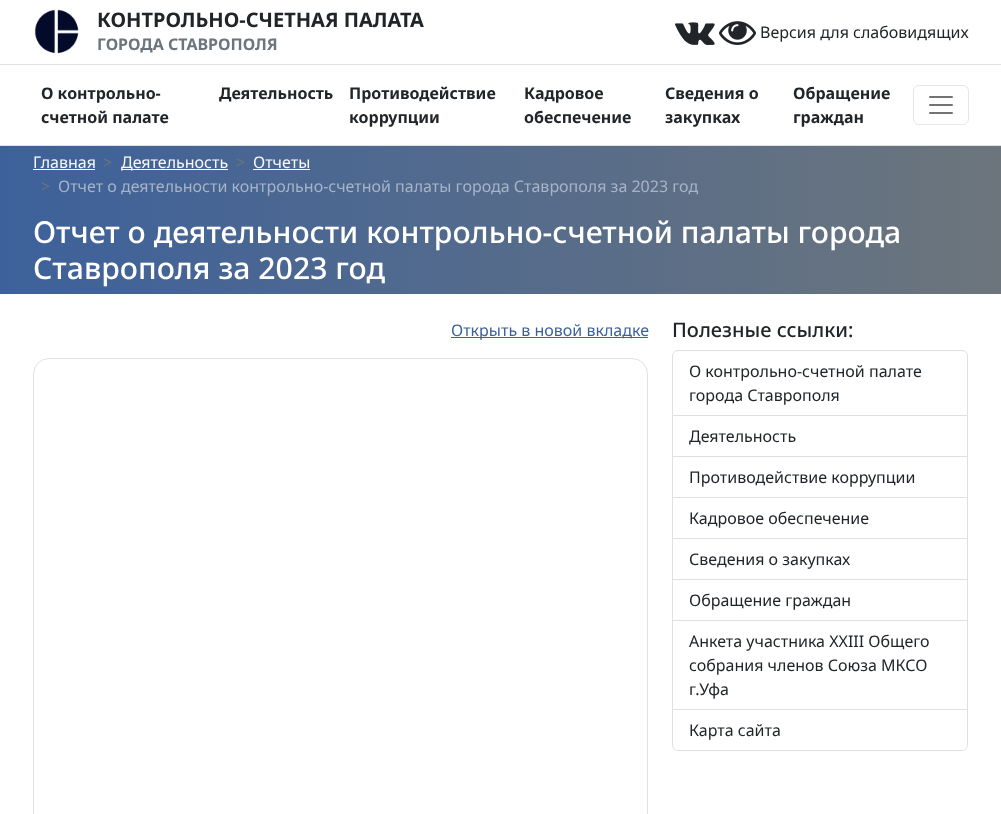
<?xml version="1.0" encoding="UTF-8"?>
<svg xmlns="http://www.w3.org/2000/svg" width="1001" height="814">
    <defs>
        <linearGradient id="g1" gradientUnits="userSpaceOnUse" x1="0" y1="220" x2="1001" y2="220"><stop offset="0" stop-color="#3D619B"/><stop offset="1" stop-color="#6C757C"/></linearGradient>
    </defs>
    <rect width="100%" height="100%" fill="#FFFFFF"/>
    <image x="34" y="9" width="45" height="45" href="img_01.png"/>
    <text x="97" y="27" font-family="Noto Sans" font-size="20" font-weight="700" fill="#212529">КОНТРОЛЬНО-СЧЕТНАЯ ПАЛАТА</text>
    <text x="97" y="50" font-family="Noto Sans" font-size="16" font-weight="700" fill="#6C757D">ГОРОДА СТАВРОПОЛЯ</text>
    <image x="675" y="22" width="40" height="23" href="img_02.png"/>
    <image x="719" y="21" width="37" height="24" href="img_03.png"/>
    <text x="760" y="38" font-family="Noto Sans" font-size="16" fill="#212529">Версия для слабовидящих</text>
    <rect x="0" y="64" width="1001" height="1" fill="#DEE2E6"/>
    <rect x="0" y="145" width="1001" height="1" fill="#DEE2E6"/>
    <text font-family="Noto Sans" font-size="16" font-weight="700" fill="#212529">
        <tspan x="41" y="99">О контрольно-</tspan>
        <tspan x="41" y="123">счетной палате</tspan>
    </text>
    <text x="219" y="99" font-family="Noto Sans" font-size="16" font-weight="700" fill="#212529">Деятельность</text>
    <text font-family="Noto Sans" font-size="16" font-weight="700" fill="#212529">
        <tspan x="349" y="99">Противодействие</tspan>
        <tspan x="349" y="123">коррупции</tspan>
    </text>
    <text font-family="Noto Sans" font-size="16" font-weight="700" fill="#212529">
        <tspan x="524" y="99">Кадровое</tspan>
        <tspan x="524" y="123">обеспечение</tspan>
    </text>
    <text font-family="Noto Sans" font-size="16" font-weight="700" fill="#212529">
        <tspan x="665" y="99">Сведения о</tspan>
        <tspan x="665" y="123">закупках</tspan>
    </text>
    <text font-family="Noto Sans" font-size="16" font-weight="700" fill="#212529">
        <tspan x="793" y="99">Обращение</tspan>
        <tspan x="793" y="123">граждан</tspan>
    </text>
    <rect x="913.5" y="85.5" width="55" height="39" rx="5.5" fill="none" stroke="#E6E6E6"/>
    <image x="929" y="96" width="24" height="18" href="img_04.png"/>
    <rect x="0" y="146" width="1001" height="148" fill="url(#g1)"/>
    <text x="33" y="168" font-family="Noto Sans" font-size="16" fill="#F8F9FA">Главная</text>
    <rect x="33" y="169" width="62" height="1" fill="#F8F9FA"/>
    <text x="103" y="168" font-family="Noto Sans" font-size="16" fill="#6C757D">&gt;</text>
    <rect x="121" y="169" width="107" height="1" fill="#F8F9FA"/>
    <text x="121" y="168" font-family="Noto Sans" font-size="16" fill="#F8F9FA">Деятельность</text>
    <text x="236" y="168" font-family="Noto Sans" font-size="16" fill="#6C757D">&gt;</text>
    <text x="253" y="168" font-family="Noto Sans" font-size="16" fill="#F8F9FA">Отчеты</text>
    <rect x="253" y="169" width="57" height="1" fill="#F8F9FA"/>
    <text x="41" y="192" font-family="Noto Sans" font-size="16" fill="#6C757D">&gt;</text>
    <text x="58" y="192" font-family="Noto Sans" font-size="16" fill="#A7B4C7">Отчет о деятельности контрольно-счетной палаты города Ставрополя за 2023 год</text>
    <text font-family="Noto Sans" font-size="30.2" font-weight="500" fill="#FFFFFF">
        <tspan x="33" y="243">Отчет о деятельности контрольно-счетной палаты города</tspan>
        <tspan x="33" y="279">Ставрополя за 2023 год</tspan>
    </text>
    <rect x="451" y="337" width="197" height="1" fill="#3D619B"/>
    <text x="451" y="336" font-family="Noto Sans" font-size="16" fill="#3D619B">Открыть в новой вкладке</text>
    <rect x="33.5" y="358.5" width="614" height="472" rx="15.5" fill="none" stroke="#DEE2E6"/>
    <text x="672" y="337" font-family="Noto Sans" font-size="20" font-weight="500" fill="#212529">Полезные ссылки:</text>
    <path d="M 678 350.5 H 962 C 965 350.5 967.5 353 967.5 356 V 415.5 H 672.5 V 356 C 672.5 353 675 350.5 678 350.5 Z" fill="none" stroke="#DFDFDF"/>
    <text font-family="Noto Sans" font-size="16" fill="#212529">
        <tspan x="689" y="377">О контрольно-счетной палате</tspan>
        <tspan x="689" y="401">города Ставрополя</tspan>
    </text>
    <path d="M 968 416 V 457 L 967 456 V 416 Z" fill="#DFDFDF"/>
    <path d="M 968 457 H 672 L 673 456 H 967 Z" fill="#000000" fill-opacity="0.12"/>
    <path d="M 672 457 V 416 H 673 V 456 Z" fill="#000000" fill-opacity="0.12"/>
    <text x="689" y="442" font-family="Noto Sans" font-size="16" fill="#212529">Деятельность</text>
    <path d="M 968 457 V 498 L 967 497 V 457 Z" fill="#DFDFDF"/>
    <path d="M 968 498 H 672 L 673 497 H 967 Z" fill="#000000" fill-opacity="0.12"/>
    <path d="M 672 498 V 457 H 673 V 497 Z" fill="#000000" fill-opacity="0.12"/>
    <text x="689" y="483" font-family="Noto Sans" font-size="16" fill="#212529">Противодействие коррупции</text>
    <path d="M 968 498 V 539 L 967 538 V 498 Z" fill="#DFDFDF"/>
    <path d="M 968 539 H 672 L 673 538 H 967 Z" fill="#000000" fill-opacity="0.12"/>
    <path d="M 672 539 V 498 H 673 V 538 Z" fill="#000000" fill-opacity="0.12"/>
    <text x="689" y="524" font-family="Noto Sans" font-size="16" fill="#212529">Кадровое обеспечение</text>
    <path d="M 968 539 V 580 L 967 579 V 539 Z" fill="#DFDFDF"/>
    <path d="M 968 580 H 672 L 673 579 H 967 Z" fill="#000000" fill-opacity="0.12"/>
    <path d="M 672 580 V 539 H 673 V 579 Z" fill="#000000" fill-opacity="0.12"/>
    <text x="689" y="565" font-family="Noto Sans" font-size="16" fill="#212529">Сведения о закупках</text>
    <path d="M 968 580 V 621 L 967 620 V 580 Z" fill="#DFDFDF"/>
    <path d="M 968 621 H 672 L 673 620 H 967 Z" fill="#000000" fill-opacity="0.12"/>
    <path d="M 672 621 V 580 H 673 V 620 Z" fill="#000000" fill-opacity="0.12"/>
    <text x="689" y="606" font-family="Noto Sans" font-size="16" fill="#212529">Обращение граждан</text>
    <path d="M 968 621 V 710 L 967 709 V 621 Z" fill="#DFDFDF"/>
    <path d="M 968 710 H 672 L 673 709 H 967 Z" fill="#000000" fill-opacity="0.12"/>
    <path d="M 672 710 V 621 H 673 V 709 Z" fill="#000000" fill-opacity="0.12"/>
    <text font-family="Noto Sans" font-size="16" fill="#212529">
        <tspan x="689" y="647">Анкета участника XXIII Общего</tspan>
        <tspan x="689" y="671">собрания членов Союза МКСО</tspan>
        <tspan x="689" y="695">г.Уфа</tspan>
    </text>
    <path d="M 672 710 H 968 V 745 C 968 748 965 751 962 751 H 678 C 675 751 672 748 672 745 Z M 673 710 H 967 V 745 C 967 748 965 750 962 750 H 678 C 675 750 673 748 673 745 Z" fill="#DFDFDF" fill-rule="evenodd"/>
    <text x="689" y="736" font-family="Noto Sans" font-size="16" fill="#212529">Карта сайта</text>
</svg>
